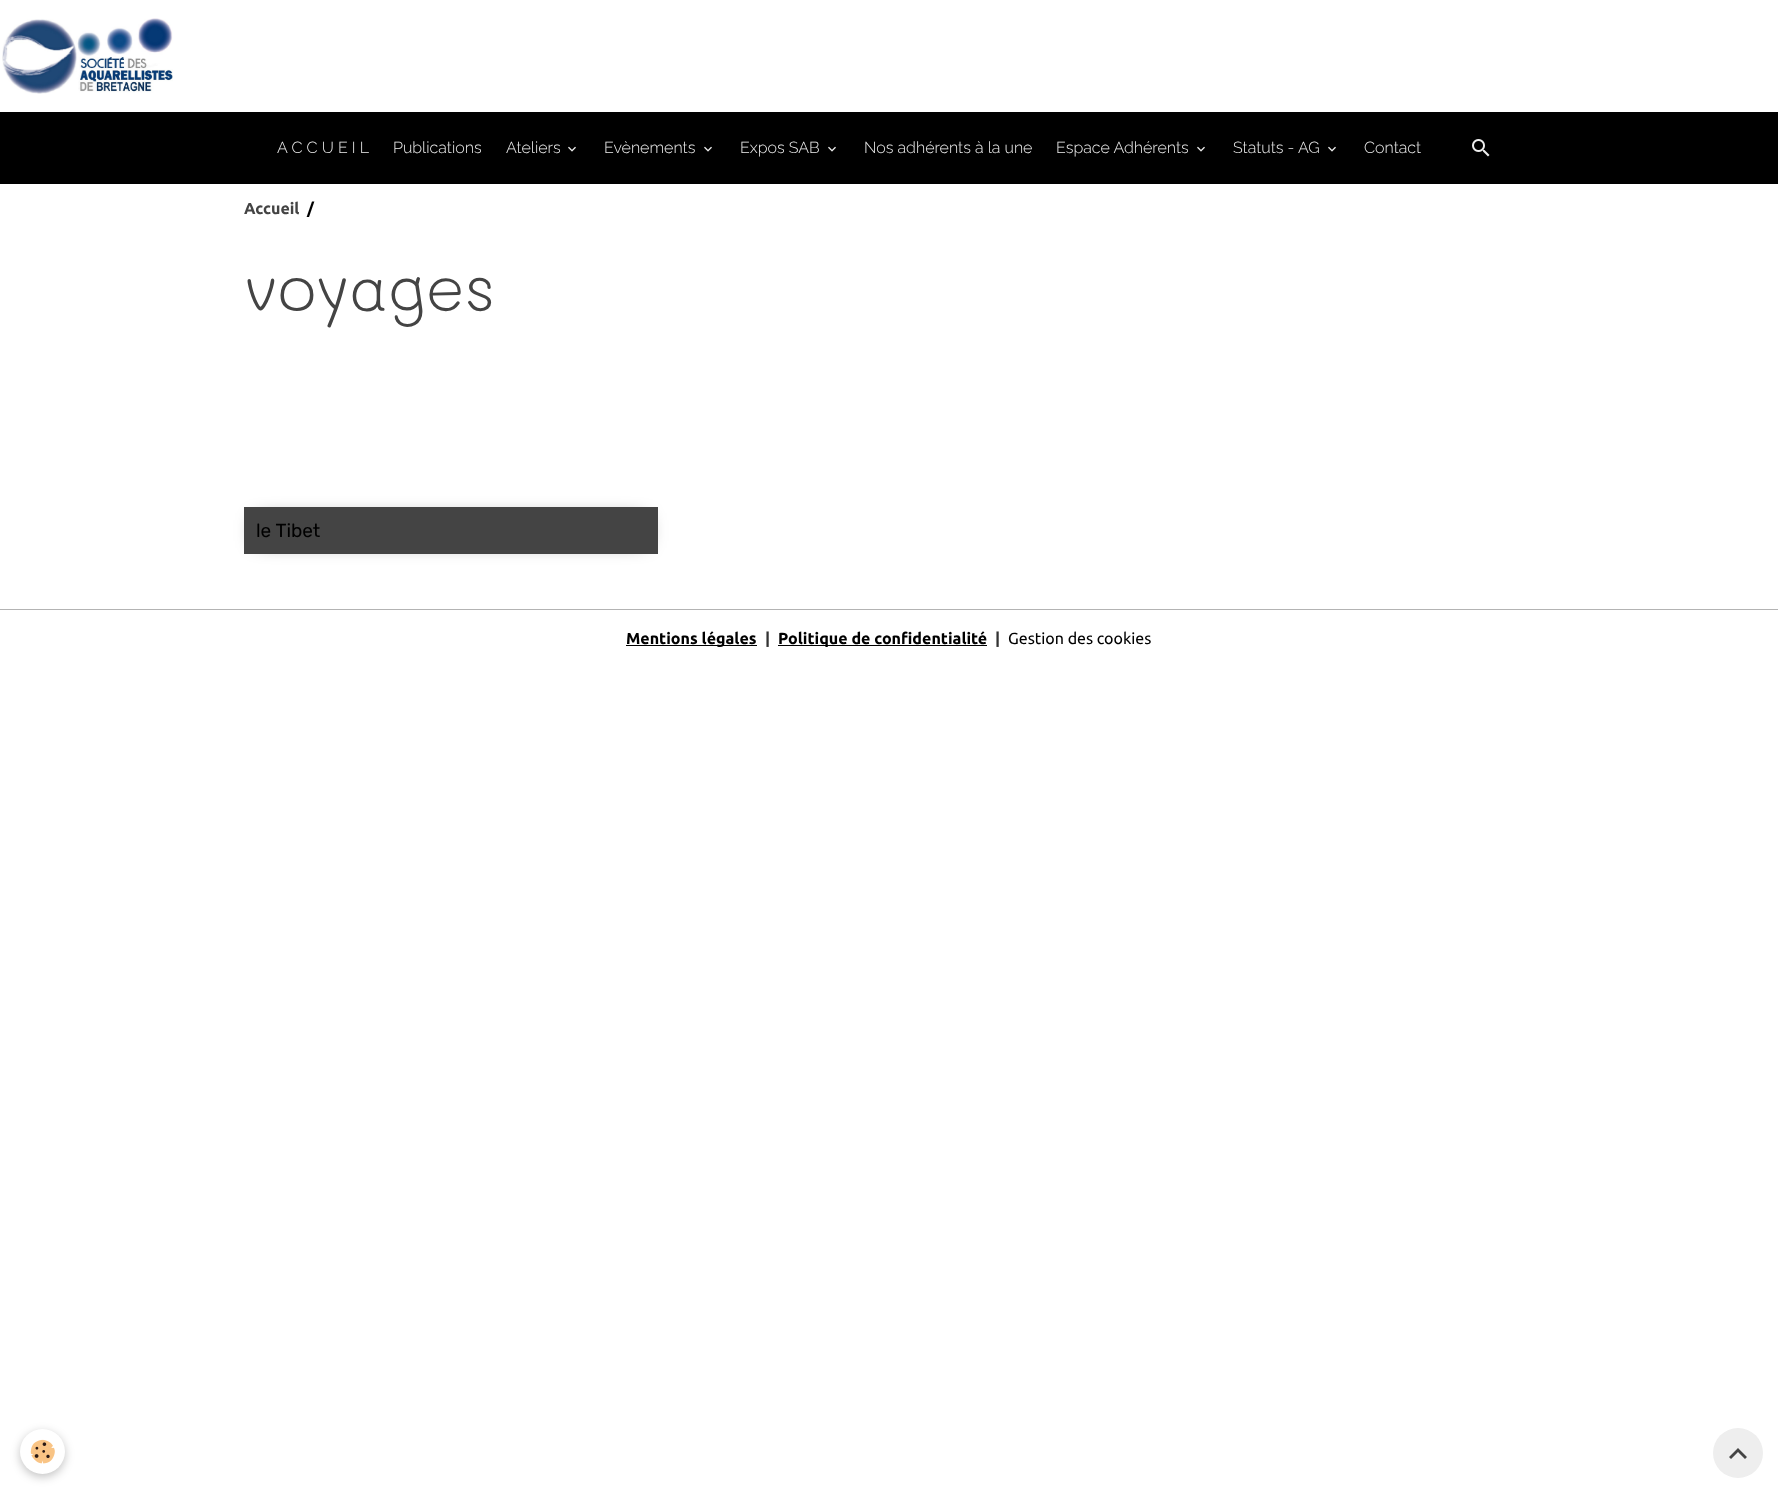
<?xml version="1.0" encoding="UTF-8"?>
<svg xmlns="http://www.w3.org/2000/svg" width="1778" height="1493">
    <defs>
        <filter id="blur1" x="-50%" y="-200%" width="200%" height="500%"><feGaussianBlur stdDeviation="10"/></filter>
        <filter id="blur2" x="-50%" y="-200%" width="200%" height="500%"><feGaussianBlur stdDeviation="5"/></filter>
    </defs>
    <rect width="100%" height="100%" fill="#FFFFFF"/>
    <image x="2" y="18" width="171" height="76" href="img_01.png"/>
    <rect x="0" y="112" width="1778" height="72" fill="#000000"/>
    <text x="277" y="153" font-family="Raleway" font-size="16" font-weight="300" fill="#EEEEEE">A C C U E I L</text>
    <text x="393" y="153" font-family="Raleway" font-size="16" font-weight="300" fill="#EEEEEE">Publications</text>
    <text x="506" y="153" font-family="Raleway" font-size="16" font-weight="300" fill="#EEEEEE">Ateliers</text>
    <image x="568" y="146" width="8" height="6" href="img_02.png"/>
    <text x="604" y="153" font-family="Raleway" font-size="16" font-weight="300" fill="#EEEEEE">Evènements</text>
    <image x="704" y="146" width="8" height="6" href="img_02.png"/>
    <text x="740" y="153" font-family="Raleway" font-size="16" font-weight="300" fill="#EEEEEE">Expos SAB</text>
    <image x="828" y="146" width="8" height="6" href="img_02.png"/>
    <text x="864" y="153" font-family="Raleway" font-size="16" font-weight="300" fill="#EEEEEE">Nos adhérents à la une</text>
    <text x="1056" y="153" font-family="Raleway" font-size="16" font-weight="300" fill="#EEEEEE">Espace Adhérents</text>
    <image x="1197" y="146" width="8" height="6" href="img_02.png"/>
    <text x="1233" y="153" font-family="Raleway" font-size="16" font-weight="300" fill="#EEEEEE">Statuts - AG</text>
    <image x="1328" y="146" width="8" height="6" href="img_02.png"/>
    <text x="1364" y="153" font-family="Raleway" font-size="16" font-weight="300" fill="#EEEEEE">Contact</text>
    <image x="1472" y="139" width="18" height="18" href="img_03.png"/>
    <text x="244" y="214" font-family="Ubuntu" font-size="16" font-weight="700" fill="#444444">Accueil</text>
    <text x="307" y="214" font-family="Ubuntu" font-size="16" font-weight="700" fill="#000000">/</text>
    <text x="244" y="311" font-family="Mali" font-size="64" font-weight="300" fill="#444444">voyages</text>
    <rect x="257" y="520" width="388" height="21" fill="#000000" fill-opacity="0.72" filter="url(#blur1)"/>
    <rect x="244" y="507" width="414" height="47" fill="#444444"/>
    <text x="256" y="537" font-family="Rubik" font-size="19" fill="#000000">le Tibet</text>
    <rect x="0" y="609" width="1778" height="1" fill="#B3B3B3"/>
    <rect x="626" y="645" width="131" height="1" fill="#000000"/>
    <text x="626" y="644" font-family="Ubuntu" font-size="16" font-weight="700" fill="#000000">Mentions légales</text>
    <text x="765" y="644" font-family="Ubuntu" font-size="16" font-weight="700" fill="#333333">|</text>
    <rect x="778" y="645" width="209" height="1" fill="#000000"/>
    <text x="778" y="644" font-family="Ubuntu" font-size="16" font-weight="700" fill="#000000">Politique de confidentialité</text>
    <text x="995" y="644" font-family="Ubuntu" font-size="16" font-weight="700" fill="#333333">|</text>
    <text x="1008" y="644" font-family="Ubuntu" font-size="16" fill="#000000">Gestion des cookies</text>
    <rect x="20" y="1432" width="45" height="45" rx="22.5" fill="#000000" fill-opacity="0.24" filter="url(#blur2)"/>
    <circle cx="42.5" cy="1451.5" r="22.5" fill="#FFFFFF"/>
    <image x="30" y="1439" width="25" height="25" href="img_04.png"/>
    <circle cx="1738" cy="1453" r="25" fill="#EEEEEE"/>
    <path d="M 1738 1448 L 1747 1457 L 1745 1459 L 1738 1452 L 1731 1459 L 1729 1457 Z" fill="#444444"/>
</svg>
